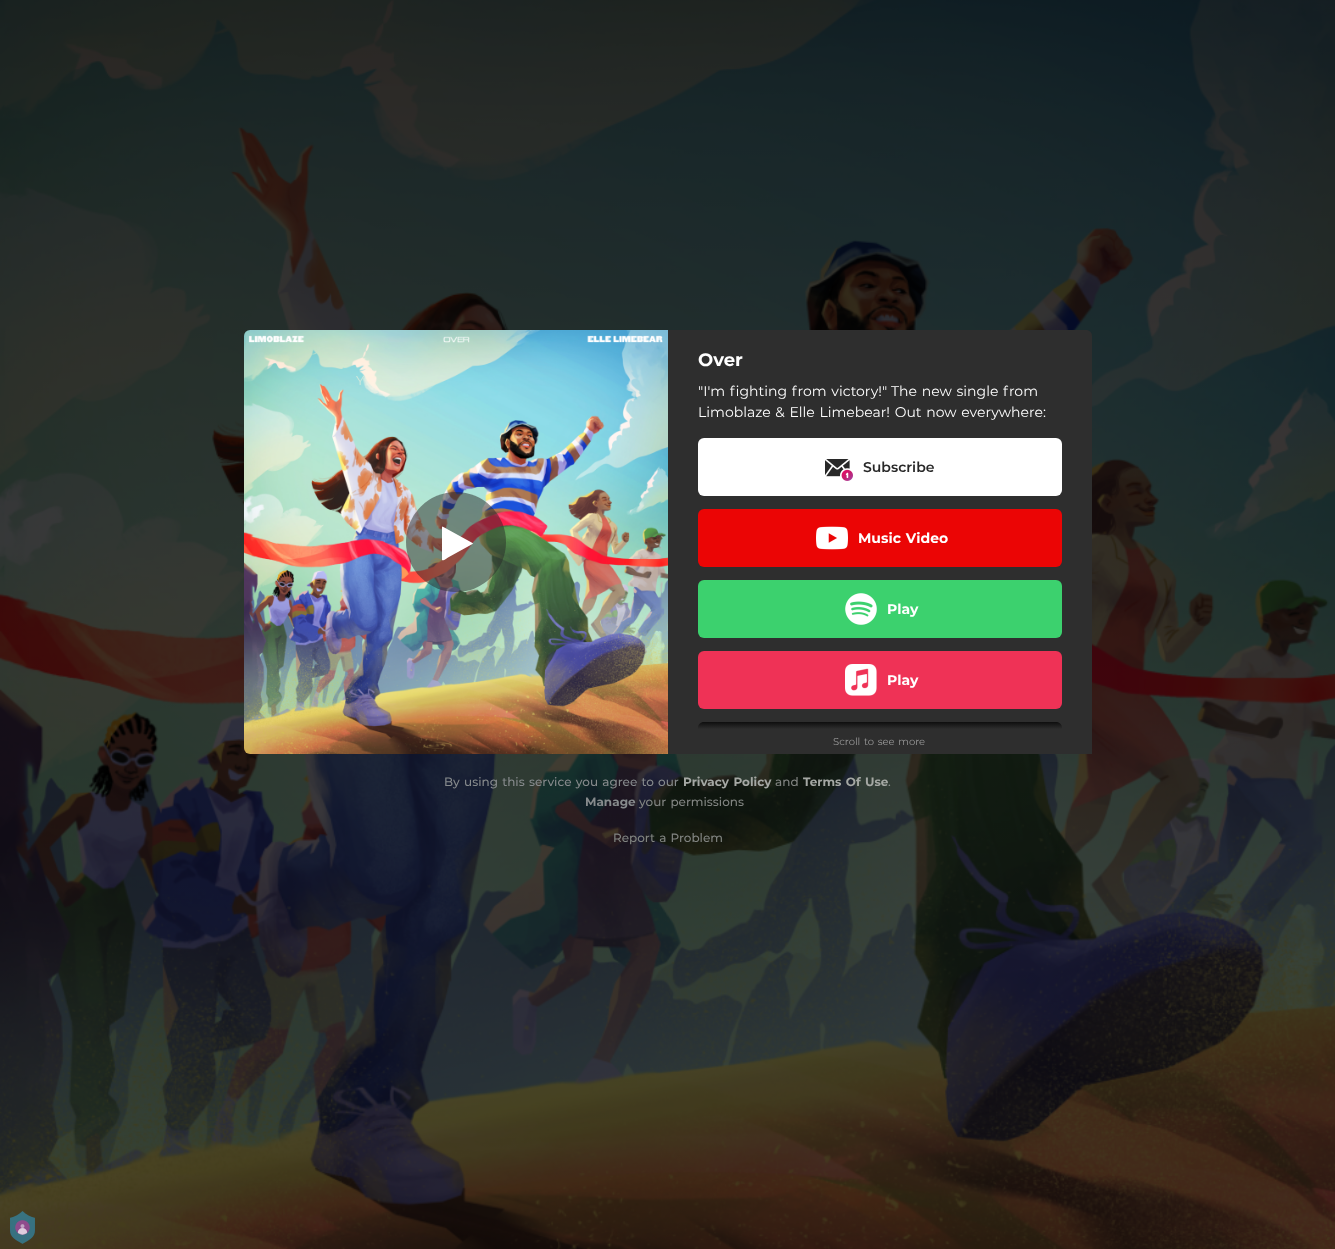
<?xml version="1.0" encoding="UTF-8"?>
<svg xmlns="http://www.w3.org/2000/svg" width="1335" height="1249">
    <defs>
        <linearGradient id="g1" gradientUnits="userSpaceOnUse" x1="880" y1="729" x2="880" y2="719"><stop offset="0" stop-color="#2E2E2E"/><stop offset="1" stop-color="#2E2E2E" stop-opacity="0"/></linearGradient>
    </defs>
    <rect width="100%" height="100%" fill="#FFFFFF"/>
    <image x="0" y="0" width="1335" height="1249" href="img_01.png"/>
    <image x="244" y="330" width="424" height="424" href="img_02.png"/>
    <circle cx="456" cy="542" r="50" fill="#282828" fill-opacity="0.5"/>
    <path d="M 472.5 544 L 448 557.5 C 447.5 558 443 561.5 442 560 V 527 L 442.5 526.5 L 472.5 543 L 473 543.5 L 472.5 544" fill="#FFFFFF"/>
    <text x="356" y="385" word-spacing="1" font-family="Montserrat" font-size="13" fill="#D0E9DC">Y</text>
    <path d="M 668 330 H 1086 C 1089.5 330 1092 332.5 1092 336 V 748 C 1092 751.5 1089.5 754 1086 754 H 668 Z" fill="#2E2E2E"/>
    <text x="698" y="366" font-family="Montserrat" font-size="18" font-weight="700" fill="#FFFFFF">Over</text>
    <text x="698" y="396" word-spacing="1" font-family="Montserrat" font-size="14" fill="#FFFFFF">"I'm fighting from victory!"</text>
    <text x="891" y="396" word-spacing="1" font-family="Montserrat" font-size="14" fill="#FFFFFF">The new single from</text>
    <text x="698" y="417" word-spacing="1" font-family="Montserrat" font-size="14" fill="#FFFFFF">Limoblaze &amp; Elle Limebear! Out now everywhere:</text>
    <rect x="698" y="438" width="364" height="58" rx="6" fill="#FFFFFF"/>
    <image x="825" y="459" width="28" height="22" href="img_03.png"/>
    <text x="863" y="472" font-family="Montserrat" font-size="14" font-weight="600" fill="#282828">Subscribe</text>
    <rect x="698" y="509" width="364" height="58" rx="6" fill="#EB0505"/>
    <image x="816" y="526" width="32" height="24" href="img_04.png"/>
    <text x="858" y="543" word-spacing="1" font-family="Montserrat" font-size="14" font-weight="700" fill="#FFFFFF">Music Video</text>
    <rect x="698" y="580" width="364" height="58" rx="6" fill="#3CD16E"/>
    <image x="845" y="593" width="32" height="32" href="img_05.png"/>
    <text x="887" y="614" font-family="Montserrat" font-size="14" font-weight="700" fill="#FFFFFF">Play</text>
    <rect x="698" y="651" width="364" height="58" rx="6" fill="#EF3256"/>
    <image x="845" y="664" width="32" height="32" href="img_06.png"/>
    <text x="887" y="685" font-family="Montserrat" font-size="14" font-weight="700" fill="#FFFFFF">Play</text>
    <path d="M 704 722 H 1056 C 1059.5 722 1062 724.5 1062 728 V 754 H 698 V 728 C 698 724.5 700.5 722 704 722 Z" fill="#000000"/>
    <rect x="698" y="722" width="364" height="7" fill="url(#g1)"/>
    <rect x="698" y="729" width="394" height="25" fill="#2E2E2E"/>
    <text x="833" y="745" word-spacing="1" font-family="Montserrat" font-size="10" fill="#999999">Scroll to see more</text>
    <text x="444" y="786" word-spacing="1" font-family="Montserrat" font-size="12" font-weight="500" fill="#868A8C">By using this service you agree to our</text>
    <text x="683" y="786" word-spacing="1" font-family="Montserrat" font-size="12" font-weight="700" fill="#A5A8A4">Privacy Policy</text>
    <text x="775" y="786" font-family="Montserrat" font-size="12" font-weight="500" fill="#818481">and</text>
    <text x="803" y="786" word-spacing="1" font-family="Montserrat" font-size="12" font-weight="700" fill="#A5A8A4">Terms Of Use</text>
    <text x="888" y="786" font-family="Montserrat" font-size="12" font-weight="500" fill="#8E9290">.</text>
    <text x="585" y="806" font-family="Montserrat" font-size="12" font-weight="700" fill="#868A8C">Manage</text>
    <text x="639" y="806" word-spacing="1" font-family="Montserrat" font-size="12" font-weight="500" fill="#818481">your permissions</text>
    <text x="613" y="842" word-spacing="1" font-family="Montserrat" font-size="12" font-weight="500" fill="#818481">Report a Problem</text>
    <image x="10" y="1211" width="25" height="33" href="img_07.png"/>
</svg>
